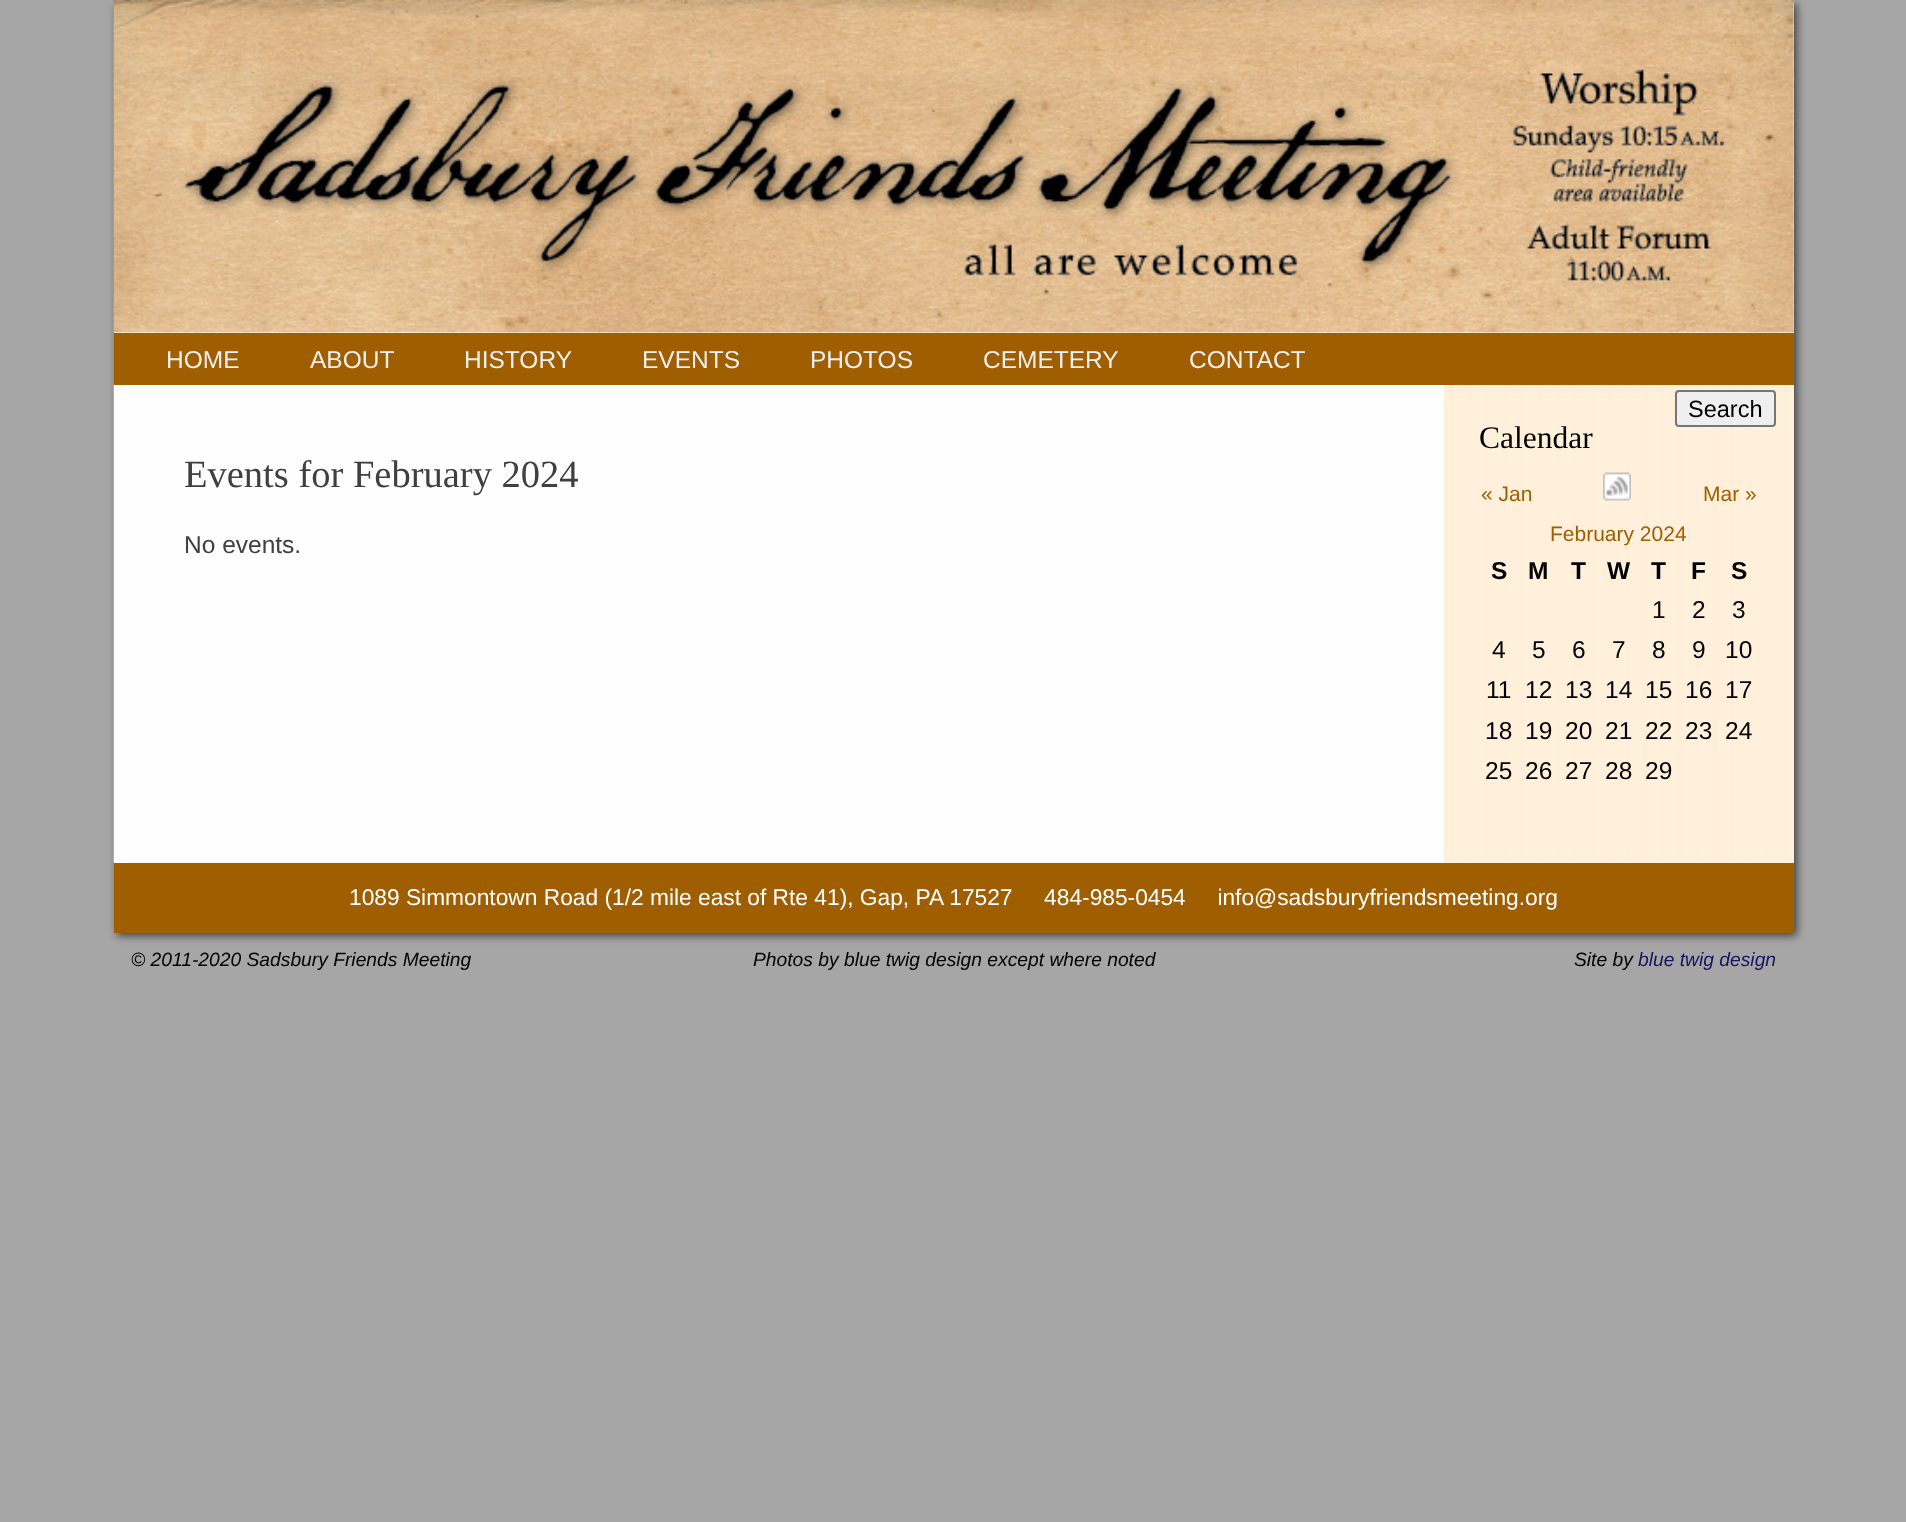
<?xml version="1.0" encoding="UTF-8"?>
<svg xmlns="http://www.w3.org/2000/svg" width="1906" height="1522">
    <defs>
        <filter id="blur1" x="-50%" y="-200%" width="200%" height="500%"><feGaussianBlur stdDeviation="4.5"/></filter>
    </defs>
    <rect width="100%" height="100%" fill="#A6A6A6"/>
    <rect x="117" y="4" width="1680" height="932" fill="#000000" fill-opacity="0.6" filter="url(#blur1)"/>
    <rect x="114" y="0" width="1680" height="863" fill="#FEFEFE"/>
    <image x="113" y="0" width="1681" height="333" href="img_01.png"/>
    <rect x="114" y="333" width="1680" height="52" fill="#9F5F00"/>
    <text x="166" y="368" font-family="Liberation Sans" font-size="24.5" fill="#EFEFEF">HOME</text>
    <text x="310" y="368" font-family="Liberation Sans" font-size="24.5" fill="#EFEFEF">ABOUT</text>
    <text x="464" y="368" font-family="Liberation Sans" font-size="24.5" fill="#EFEFEF">HISTORY</text>
    <text x="642" y="368" font-family="Liberation Sans" font-size="24.5" fill="#EFEFEF">EVENTS</text>
    <text x="810" y="368" font-family="Liberation Sans" font-size="24.5" fill="#EFEFEF">PHOTOS</text>
    <text x="983" y="368" font-family="Liberation Sans" font-size="24.5" fill="#EFEFEF">CEMETERY</text>
    <text x="1189" y="368" font-family="Liberation Sans" font-size="24.5" fill="#EFEFEF">CONTACT</text>
    <image x="113" y="385" width="1681" height="478" href="img_02.png"/>
    <rect x="1676" y="391" width="99" height="35" rx="3" fill="#EFEFEF" stroke="#767676" stroke-width="2"/>
    <text x="1688" y="417" font-family="Liberation Sans" font-size="23.5" fill="#000000">Search</text>
    <text x="184" y="487" font-family="Liberation Serif" font-size="38.5" fill="#404040">Events for February 2024</text>
    <text x="184" y="553" font-family="Liberation Sans" font-size="24.5" fill="#404040">No events.</text>
    <text x="1479" y="448" font-family="Liberation Serif" font-size="31.5" fill="#000000">Calendar</text>
    <text x="1481" y="501" font-family="Liberation Sans" font-size="21" fill="#9F5F00">« Jan</text>
    <image x="1603" y="472" width="28" height="29" href="img_03.png"/>
    <text x="1703" y="501" font-family="Liberation Sans" font-size="21" fill="#9F5F00">Mar »</text>
    <text x="1550" y="541" font-family="Liberation Sans" font-size="21" fill="#9F5F00">February 2024</text>
    <text x="1491" y="579" font-family="Liberation Sans" font-size="24.5" font-weight="700" fill="#000000">S</text>
    <text x="1528" y="579" font-family="Liberation Sans" font-size="24.5" font-weight="700" fill="#000000">M</text>
    <text x="1571" y="579" font-family="Liberation Sans" font-size="24.5" font-weight="700" fill="#000000">T</text>
    <text x="1607" y="579" font-family="Liberation Sans" font-size="24.5" font-weight="700" fill="#000000">W</text>
    <text x="1651" y="579" font-family="Liberation Sans" font-size="24.5" font-weight="700" fill="#000000">T</text>
    <text x="1691" y="579" font-family="Liberation Sans" font-size="24.5" font-weight="700" fill="#000000">F</text>
    <text x="1731" y="579" font-family="Liberation Sans" font-size="24.5" font-weight="700" fill="#000000">S</text>
    <text x="1652" y="618" font-family="Liberation Sans" font-size="24.5" fill="#000000">1</text>
    <text x="1692" y="618" font-family="Liberation Sans" font-size="24.5" fill="#000000">2</text>
    <text x="1732" y="618" font-family="Liberation Sans" font-size="24.5" fill="#000000">3</text>
    <text x="1492" y="658" font-family="Liberation Sans" font-size="24.5" fill="#000000">4</text>
    <text x="1532" y="658" font-family="Liberation Sans" font-size="24.5" fill="#000000">5</text>
    <text x="1572" y="658" font-family="Liberation Sans" font-size="24.5" fill="#000000">6</text>
    <text x="1612" y="658" font-family="Liberation Sans" font-size="24.5" fill="#000000">7</text>
    <text x="1652" y="658" font-family="Liberation Sans" font-size="24.5" fill="#000000">8</text>
    <text x="1692" y="658" font-family="Liberation Sans" font-size="24.5" fill="#000000">9</text>
    <text x="1725" y="658" font-family="Liberation Sans" font-size="24.5" fill="#000000">10</text>
    <text x="1486" y="698" font-family="Liberation Sans" font-size="24.5" fill="#000000">11</text>
    <text x="1525" y="698" font-family="Liberation Sans" font-size="24.5" fill="#000000">12</text>
    <text x="1565" y="698" font-family="Liberation Sans" font-size="24.5" fill="#000000">13</text>
    <text x="1605" y="698" font-family="Liberation Sans" font-size="24.5" fill="#000000">14</text>
    <text x="1645" y="698" font-family="Liberation Sans" font-size="24.5" fill="#000000">15</text>
    <text x="1685" y="698" font-family="Liberation Sans" font-size="24.5" fill="#000000">16</text>
    <text x="1725" y="698" font-family="Liberation Sans" font-size="24.5" fill="#000000">17</text>
    <text x="1485" y="739" font-family="Liberation Sans" font-size="24.5" fill="#000000">18</text>
    <text x="1525" y="739" font-family="Liberation Sans" font-size="24.5" fill="#000000">19</text>
    <text x="1565" y="739" font-family="Liberation Sans" font-size="24.5" fill="#000000">20</text>
    <text x="1605" y="739" font-family="Liberation Sans" font-size="24.5" fill="#000000">21</text>
    <text x="1645" y="739" font-family="Liberation Sans" font-size="24.5" fill="#000000">22</text>
    <text x="1685" y="739" font-family="Liberation Sans" font-size="24.5" fill="#000000">23</text>
    <text x="1725" y="739" font-family="Liberation Sans" font-size="24.5" fill="#000000">24</text>
    <text x="1485" y="779" font-family="Liberation Sans" font-size="24.5" fill="#000000">25</text>
    <text x="1525" y="779" font-family="Liberation Sans" font-size="24.5" fill="#000000">26</text>
    <text x="1565" y="779" font-family="Liberation Sans" font-size="24.5" fill="#000000">27</text>
    <text x="1605" y="779" font-family="Liberation Sans" font-size="24.5" fill="#000000">28</text>
    <text x="1645" y="779" font-family="Liberation Sans" font-size="24.5" fill="#000000">29</text>
    <rect x="114" y="863" width="1680" height="70" fill="#9F5F00"/>
    <text x="349" y="905" font-family="Liberation Sans" font-size="22.75" fill="#FFFFFF" xml:space="preserve">1089 Simmontown Road (1/2 mile east of Rte 41), Gap, PA 17527     484-985-0454     info@sadsburyfriendsmeeting.org</text>
    <text x="131" y="966" font-family="Liberation Sans" font-size="19.25" font-style="italic" fill="#000000">© 2011-2020 Sadsbury Friends Meeting</text>
    <text x="753" y="966" font-family="Liberation Sans" font-size="19.25" font-style="italic" fill="#000000">Photos by blue twig design except where noted</text>
    <text x="1574" y="966" font-family="Liberation Sans" font-size="19.25" font-style="italic" fill="#000000">Site by</text>
    <text x="1638" y="966" font-family="Liberation Sans" font-size="19.25" font-style="italic" fill="#191464">blue twig design</text>
</svg>
